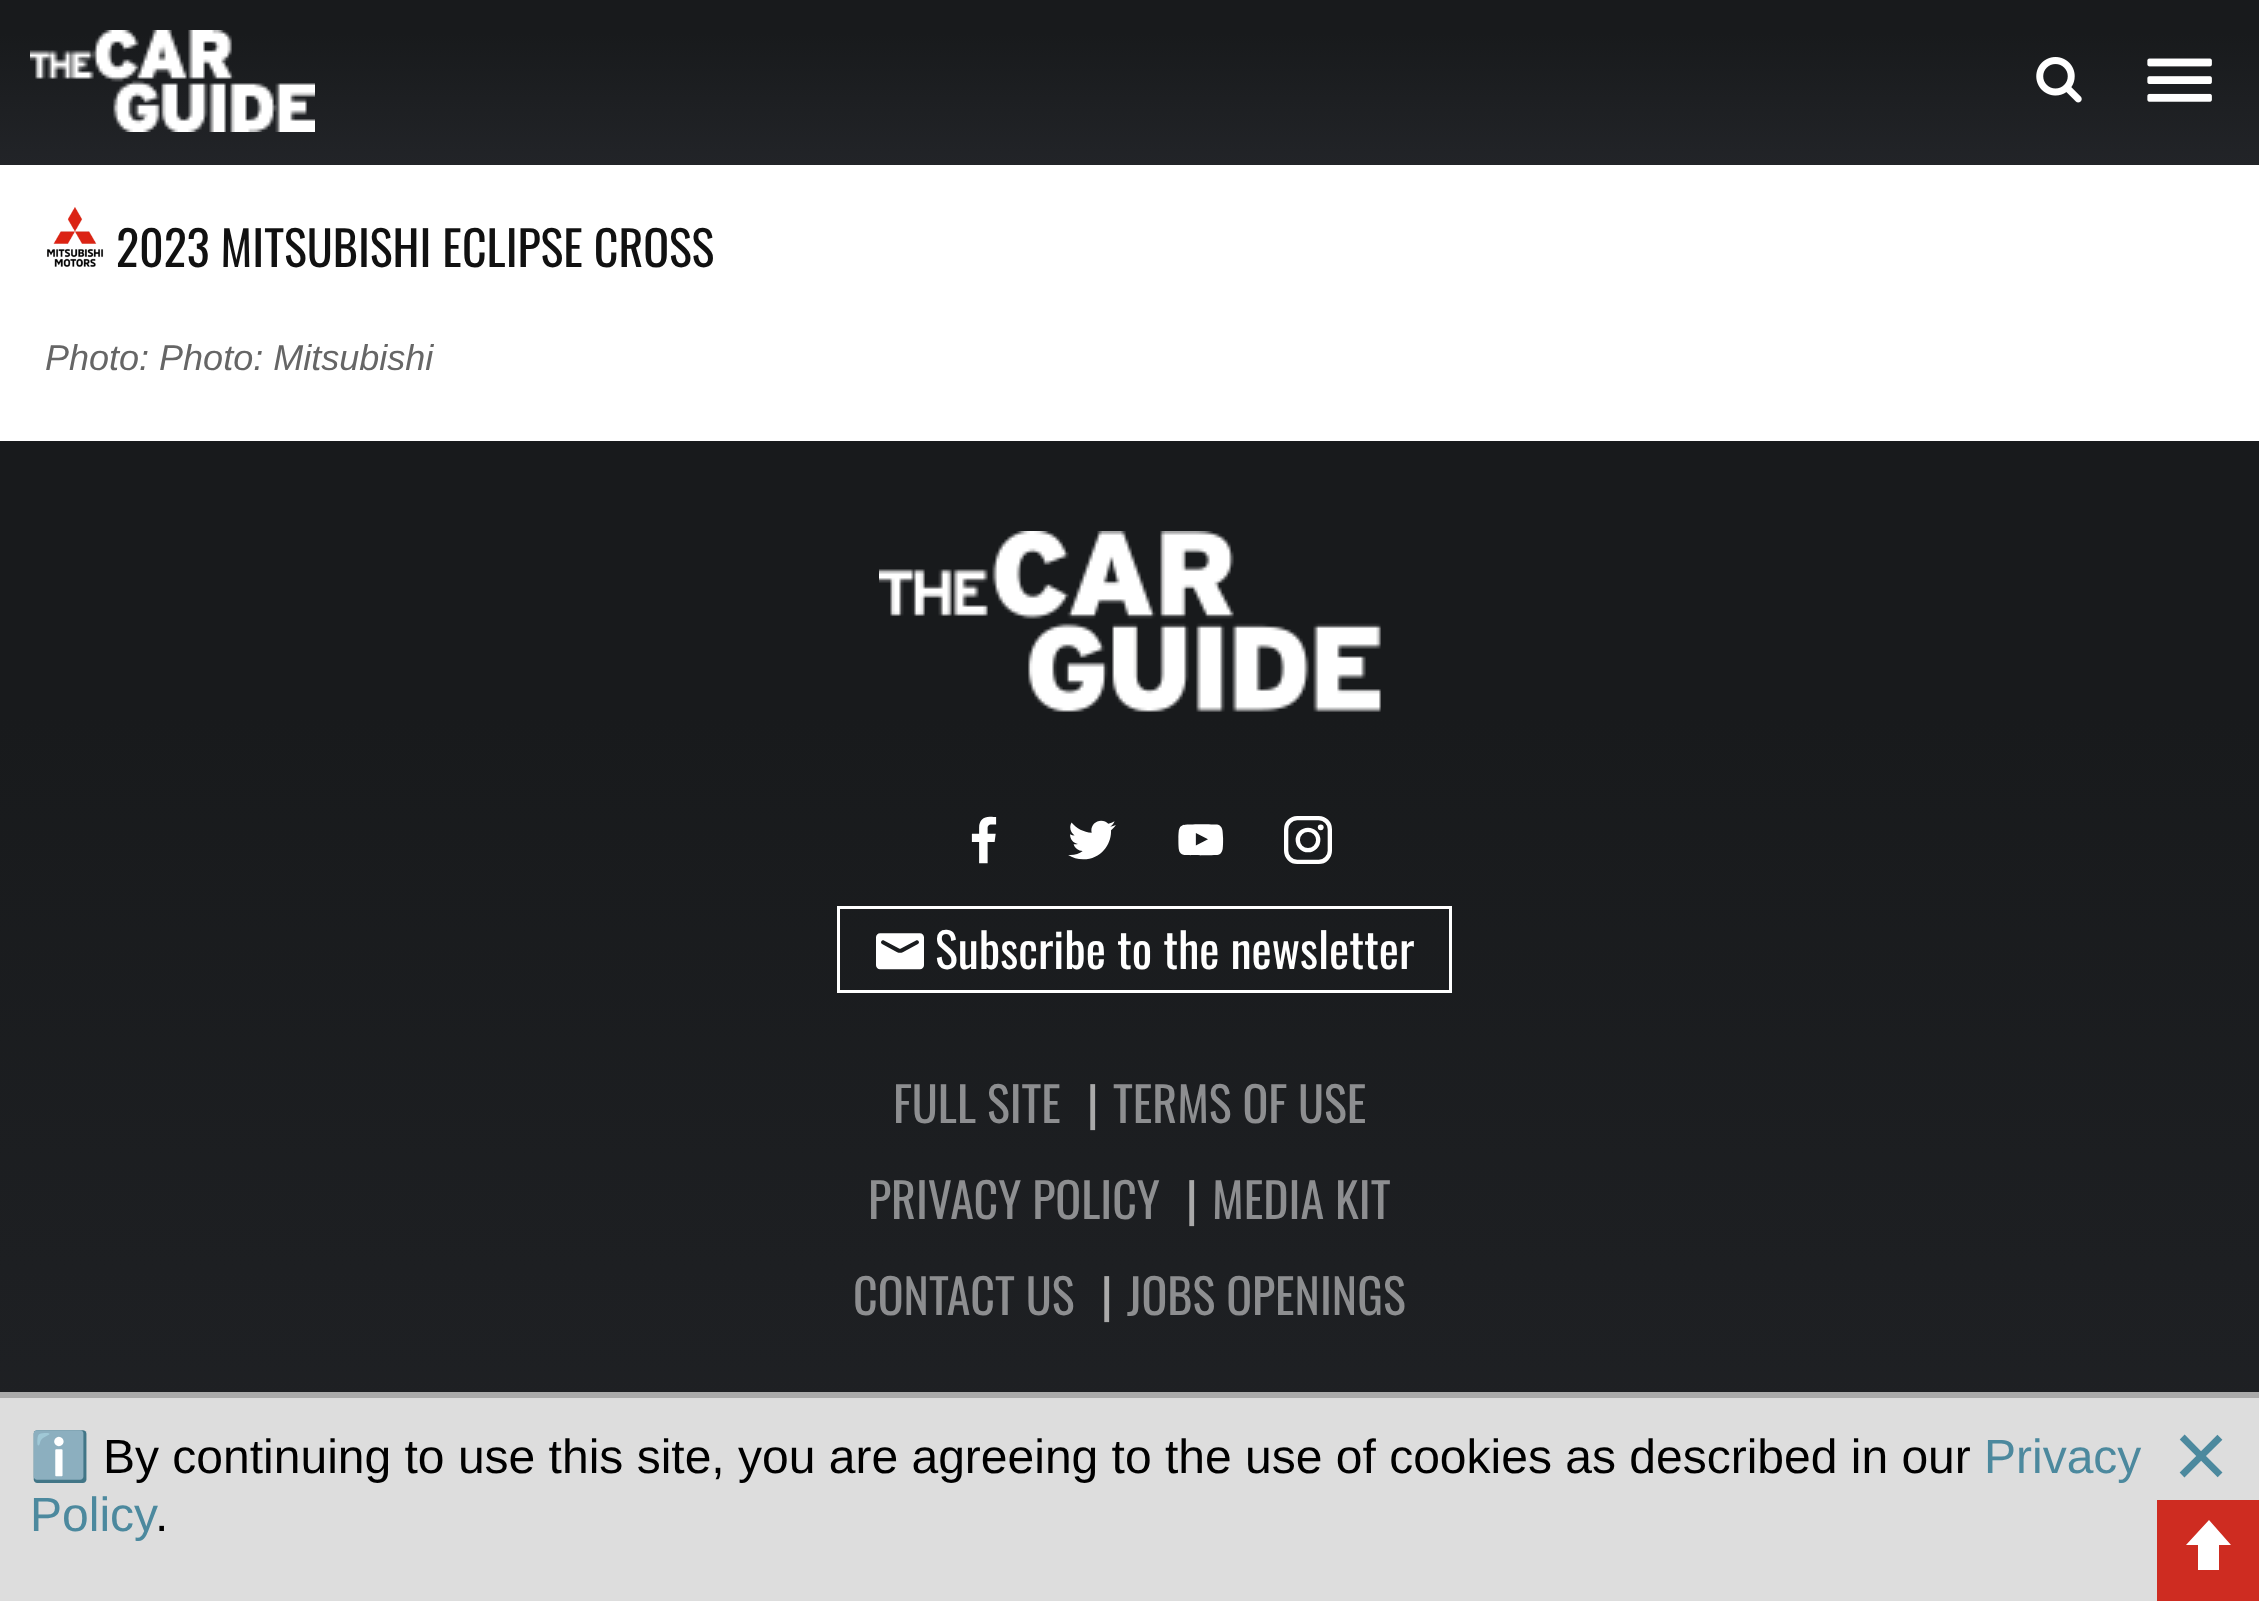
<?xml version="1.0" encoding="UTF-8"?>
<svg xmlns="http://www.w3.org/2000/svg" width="2259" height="1601">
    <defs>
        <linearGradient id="g1" gradientUnits="userSpaceOnUse" x1="0" y1="165" x2="0" y2="0"><stop offset="0" stop-color="#222428"/><stop offset="0.8" stop-color="#181A1C"/></linearGradient>
        <linearGradient id="g2" gradientUnits="userSpaceOnUse" x1="0" y1="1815" x2="0" y2="441"><stop offset="0" stop-color="#222428"/><stop offset="0.8" stop-color="#181A1C"/></linearGradient>
    </defs>
    <rect width="100%" height="100%" fill="#FFFFFF"/>
    <rect x="0" y="0" width="2259" height="165" fill="url(#g1)"/>
    <image x="30" y="30" width="285" height="102" href="img_01.png"/>
    <image x="2036" y="57" width="46" height="46" href="img_02.png"/>
    <image x="2147" y="58" width="65" height="44" href="img_03.png"/>
    <image x="47" y="207" width="57" height="60" href="img_04.png"/>
    <text x="116" y="267" font-family="Oswald" font-size="48" fill="#111111">2023 MITSUBISHI ECLIPSE CROSS</text>
    <text x="45" y="370" font-family="Liberation Sans" font-size="36" font-style="italic" fill="#666666">Photo: Photo: Mitsubishi</text>
    <rect x="0" y="441" width="2259" height="951" fill="url(#g2)"/>
    <image x="879" y="531" width="502" height="181" href="img_05.png"/>
    <image x="971" y="816" width="26" height="48" href="img_06.png"/>
    <image x="1068" y="820" width="48" height="40" href="img_07.png"/>
    <image x="1178" y="824" width="46" height="32" href="img_08.png"/>
    <image x="1284" y="816" width="48" height="48" href="img_09.png"/>
    <rect x="838.5" y="907.5" width="612" height="84" fill="none" stroke="#FFFFFF" stroke-width="3"/>
    <image x="876" y="933" width="48" height="37" href="img_10.png"/>
    <text x="935" y="969" font-family="Oswald" font-size="48" fill="#FFFFFF">Subscribe to the newsletter</text>
    <text x="893" y="1123" font-family="Oswald" font-size="48" fill="#8D8E90">FULL SITE</text>
    <text x="1087" y="1123" font-family="Oswald" font-size="48" fill="#AAAAAA">|</text>
    <text x="1113" y="1123" font-family="Oswald" font-size="48" fill="#8D8E90">TERMS OF USE</text>
    <text x="868" y="1219" font-family="Oswald" font-size="48" fill="#8D8E90">PRIVACY POLICY</text>
    <text x="1186" y="1219" font-family="Oswald" font-size="48" fill="#AAAAAA">|</text>
    <text x="1212" y="1219" font-family="Oswald" font-size="48" fill="#8D8E90">MEDIA KIT</text>
    <text x="853" y="1315" font-family="Oswald" font-size="48" fill="#8D8E90">CONTACT US</text>
    <text x="1101" y="1315" font-family="Oswald" font-size="48" fill="#AAAAAA">|</text>
    <text x="1127" y="1315" font-family="Oswald" font-size="48" fill="#8D8E90">JOBS OPENINGS</text>
    <rect x="0" y="1398" width="2259" height="203" fill="#DDDDDD"/>
    <rect x="2157" y="1500" width="102" height="101" fill="#CE2C21"/>
    <path d="M 2198 1570 V 1545 H 2186 L 2209 1520 L 2231 1545 H 2219 V 1570 Z" fill="#FFFFFF"/>
    <rect x="0" y="1392" width="2259" height="6" fill="#AAAAAA"/>
    <text x="30" y="1473" font-family="Noto Color Emoji" font-size="48" fill="#000000">ℹ️</text>
    <text x="103" y="1473" font-family="Liberation Sans" font-size="48" fill="#000000">By continuing to use this site, you are agreeing to the use of cookies as described in our</text>
    <text x="1984" y="1473" font-family="Liberation Sans" font-size="48" fill="#4C899E">Privacy</text>
    <text x="2173" y="1488" font-family="Liberation Sans" font-size="96" fill="#4C899E">×</text>
    <text x="30" y="1531" font-family="Liberation Sans" font-size="48" fill="#4C899E">Policy</text>
    <text x="155" y="1531" font-family="Liberation Sans" font-size="48" fill="#000000">.</text>
</svg>
